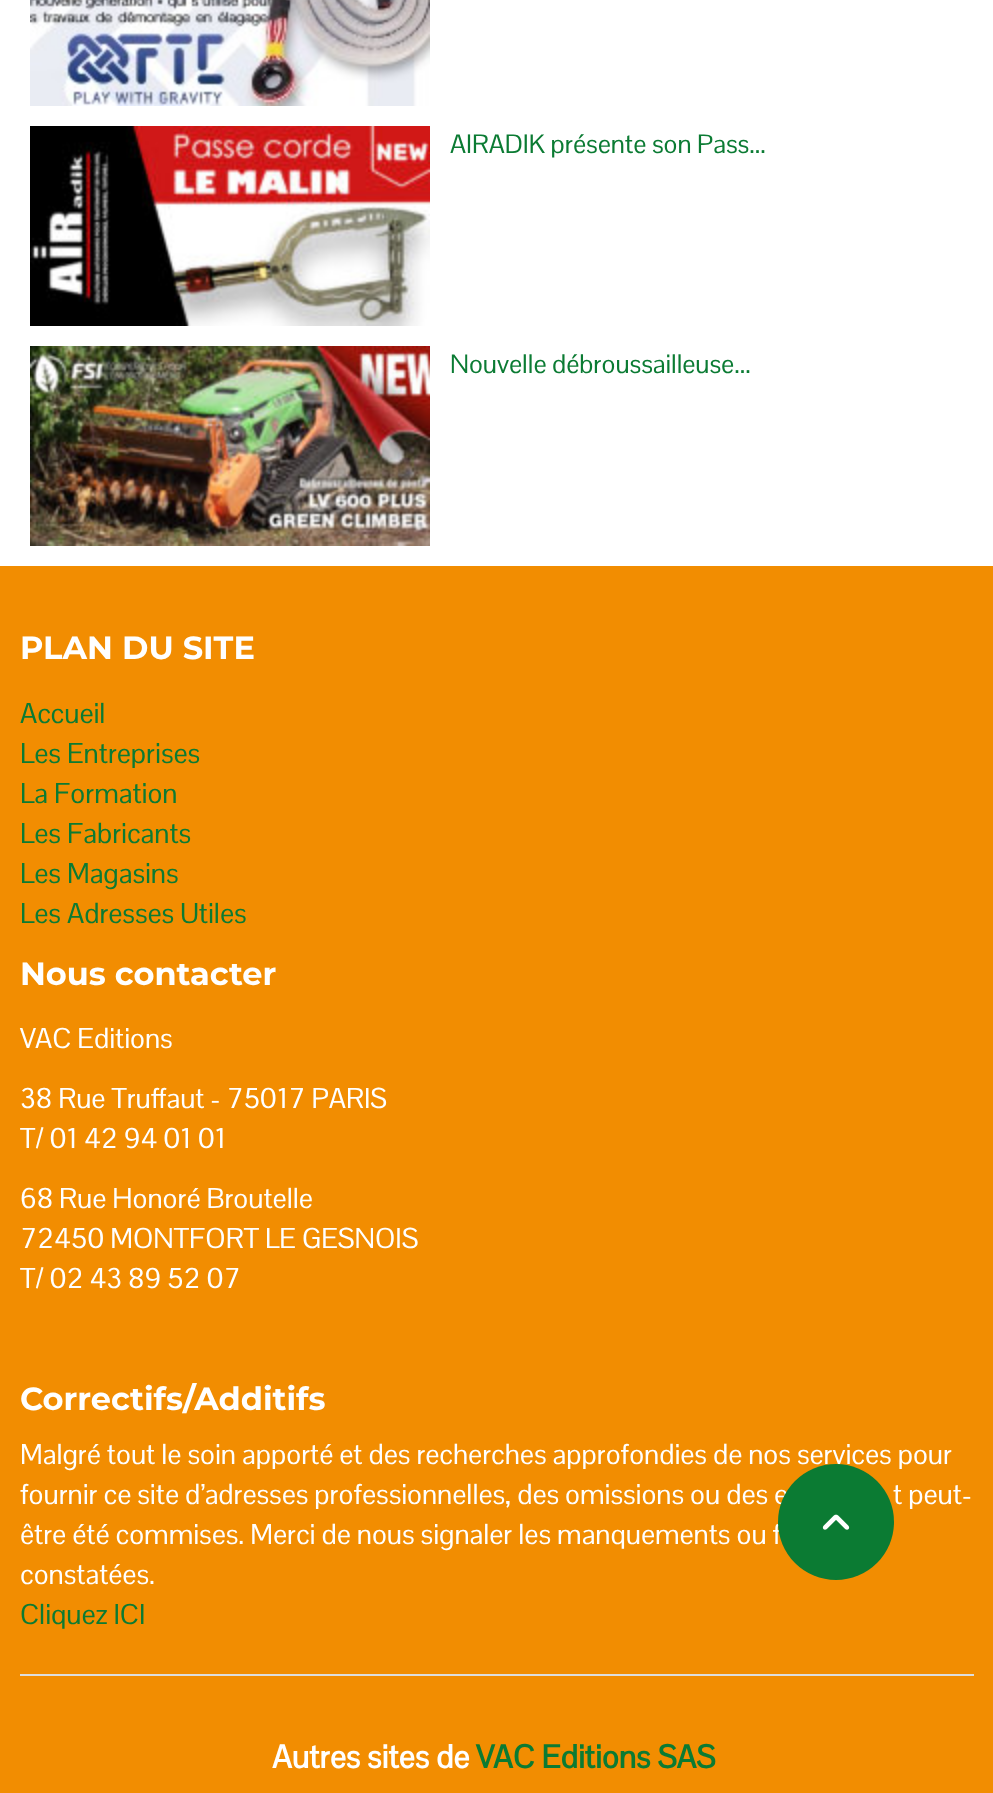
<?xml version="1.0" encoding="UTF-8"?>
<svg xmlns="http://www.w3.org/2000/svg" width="993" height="1793">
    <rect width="100%" height="100%" fill="#FFFFFF"/>
    <image x="30" y="0" width="400" height="106" href="img_01.png"/>
    <image x="30" y="126" width="400" height="200" href="img_02.png"/>
    <text x="450" y="153" font-family="Pontano Sans" font-size="26" fill="#0B7B33">AIRADIK présente son Pass...</text>
    <image x="30" y="346" width="400" height="200" href="img_03.png"/>
    <text x="450" y="373" font-family="Pontano Sans" font-size="26" fill="#0B7B33">Nouvelle débroussailleuse...</text>
    <rect x="0" y="566" width="993" height="1227" fill="#F28D01"/>
    <text x="20" y="659" font-family="Montserrat" font-size="32" font-weight="700" fill="#FFFFFF">PLAN DU SITE</text>
    <text font-family="Pontano Sans" font-size="28" fill="#0B7B33">
        <tspan x="20" y="723">Accueil</tspan>
        <tspan x="20" y="763">Les Entreprises</tspan>
        <tspan x="20" y="803">La Formation</tspan>
        <tspan x="20" y="843">Les Fabricants</tspan>
        <tspan x="20" y="883">Les Magasins</tspan>
        <tspan x="20" y="923">Les Adresses Utiles</tspan>
    </text>
    <text x="20" y="985" font-family="Montserrat" font-size="32" font-weight="700" fill="#FFFFFF">Nous contacter</text>
    <text x="20" y="1048" font-family="Pontano Sans" font-size="28" fill="#FFFFFF">VAC Editions</text>
    <text font-family="Pontano Sans" font-size="28" fill="#FFFFFF">
        <tspan x="20" y="1108">38 Rue Truffaut - 75017 PARIS</tspan>
        <tspan x="20" y="1148">T/ 01 42 94 01 01</tspan>
    </text>
    <text font-family="Pontano Sans" font-size="28" fill="#FFFFFF">
        <tspan x="20" y="1208">68 Rue Honoré Broutelle</tspan>
        <tspan x="20" y="1248">72450 MONTFORT LE GESNOIS</tspan>
        <tspan x="20" y="1288">T/ 02 43 89 52 07</tspan>
    </text>
    <text x="20" y="1410" font-family="Montserrat" font-size="32" font-weight="700" fill="#FFFFFF">Correctifs/Additifs</text>
    <text font-family="Pontano Sans" font-size="28" fill="#FFFFFF">
        <tspan x="20" y="1464">Malgré tout le soin apporté et des recherches approfondies de nos services pour</tspan>
        <tspan x="20" y="1504">fournir ce site d’adresses professionnelles, des omissions ou des e</tspan>
    </text>
    <text x="893" y="1504" font-family="Pontano Sans" font-size="28" fill="#FFFFFF">t peut-</text>
    <text font-family="Pontano Sans" font-size="28" fill="#FFFFFF">
        <tspan x="20" y="1544">être été commises. Merci de nous signaler les manquements ou f</tspan>
        <tspan x="20" y="1584">constatées.</tspan>
    </text>
    <text x="20" y="1624" font-family="Pontano Sans" font-size="28" fill="#0B7B33">Cliquez ICI</text>
    <rect x="20" y="1674" width="954" height="2" fill="#DDDDDD"/>
    <text x="272" y="1768" font-family="Pontano Sans" font-size="32" font-weight="700" fill="#FFFFFF">Autres sites de</text>
    <text x="476" y="1768" font-family="Pontano Sans" font-size="32" font-weight="700" fill="#0B7B33">VAC Editions SAS</text>
    <circle cx="836" cy="1522" r="58" fill="#0B7B33"/>
    <image x="822" y="1514" width="28" height="16" href="img_04.png"/>
</svg>
